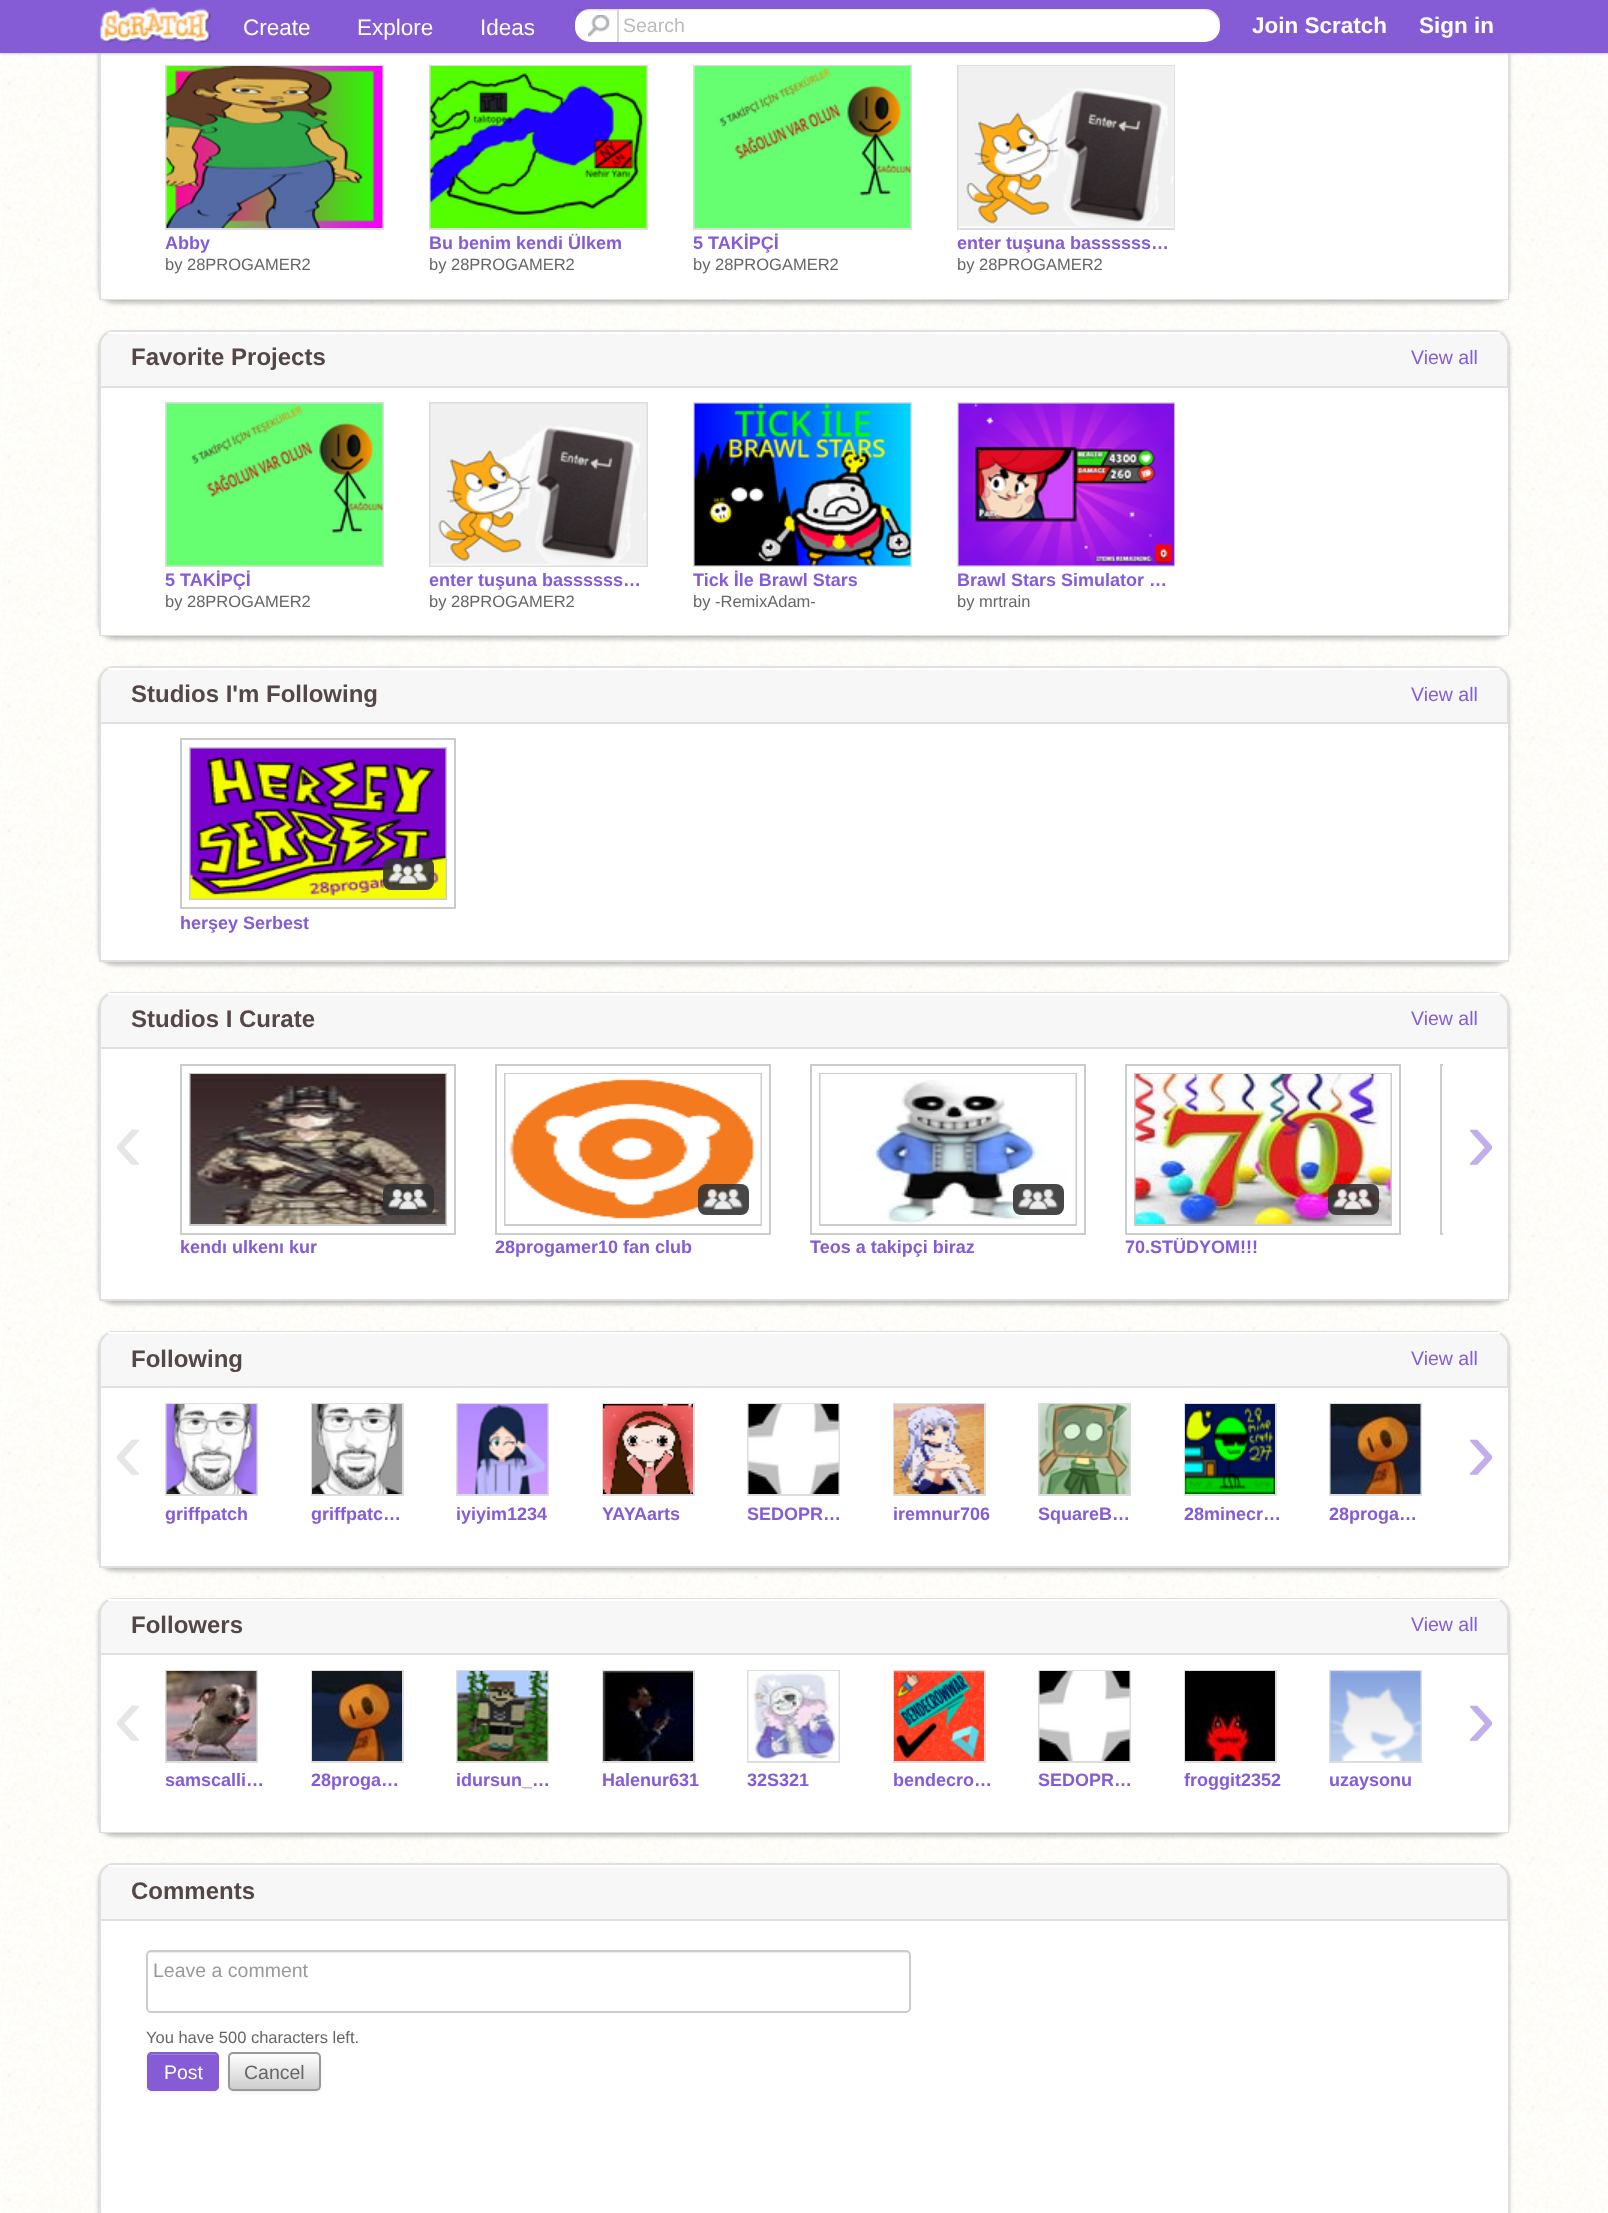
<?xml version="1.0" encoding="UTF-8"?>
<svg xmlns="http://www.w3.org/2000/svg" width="1608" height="2213">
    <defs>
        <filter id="blur1" x="-50%" y="-200%" width="200%" height="500%"><feGaussianBlur stdDeviation="2"/></filter>
        <filter id="blur2" x="-50%" y="-200%" width="200%" height="500%"><feGaussianBlur stdDeviation="1"/></filter>
        <clipPath id="clip1"><rect x="165" y="65" width="1010" height="219"/></clipPath>
        <clipPath id="clip2"><rect x="165" y="402" width="1010" height="218"/></clipPath>
        <clipPath id="clip3"><rect x="165" y="1064" width="1278" height="205"/></clipPath>
        <clipPath id="clip4"><rect x="1125" y="1238" width="270" height="21"/></clipPath>
        <filter id="blur3" x="-50%" y="-200%" width="200%" height="500%"><feGaussianBlur stdDeviation="1.5"/></filter>
        <linearGradient id="g1" gradientUnits="userSpaceOnUse" x1="275" y1="2054" x2="275" y2="2090"><stop offset="0" stop-color="#FFFFFF"/><stop offset="1" stop-color="#CCCCCC"/></linearGradient>
    </defs>
    <rect width="100%" height="100%" fill="#FFFFFF"/>
    <image x="0" y="53" width="1608" height="2160" href="img_01.png"/>
    <rect x="99" y="-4" width="1410" height="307" rx="15" fill="#221919" fill-opacity="0.3" filter="url(#blur1)"/>
    <rect x="100" y="-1" width="1408" height="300" fill="none" stroke="#E0E0E0" stroke-width="2"/>
    <rect x="101" y="53" width="1407" height="246" fill="#FFFFFF"/>
    <rect x="0" y="2" width="1608" height="52" fill="#CCCCCC" filter="url(#blur2)"/>
    <rect x="0" y="0" width="1608" height="53" fill="#855CD6"/>
    <image x="100" y="7" width="112" height="37" href="img_02.png"/>
    <text x="243" y="35" font-family="Liberation Sans" font-size="22.5" fill="#FFFFFF">Create</text>
    <text x="357" y="35" font-family="Liberation Sans" font-size="22.5" fill="#FFFFFF">Explore</text>
    <text x="480" y="35" font-family="Liberation Sans" font-size="22.5" fill="#FFFFFF">Ideas</text>
    <rect x="575" y="9" width="645" height="33" rx="15" fill="#FFFFFF"/>
    <path d="M 590 10 H 1204 L 1210 12 C 1218 15 1221 25 1219 33 C 1220 31 1220 29 1220 27 V 24 C 1220 16 1213 9 1205 9 H 590 C 584 9 578 13 576 19 C 578 14 583 10 590 10 Z" fill="#000000" fill-opacity="0.07"/>
    <image x="588" y="15" width="22" height="22" href="img_03.png"/>
    <rect x="575" y="9" width="42" height="2" fill="#000000" fill-opacity="0.06"/>
    <rect x="617" y="9" width="2" height="33" fill="#CCCCCC" fill-opacity="0.8"/>
    <text x="623" y="32" font-family="Liberation Sans" font-size="19.5" fill="#BBBBBB">Search</text>
    <text x="1252" y="33" font-family="Liberation Sans" font-size="22.5" font-weight="700" fill="#FFFFFF">Join Scratch</text>
    <text x="1419" y="33" font-family="Liberation Sans" font-size="22.5" font-weight="700" fill="#FFFFFF">Sign in</text>
    <rect x="166" y="66" width="217" height="163" fill="none" stroke="#DDDDDD" stroke-width="2"/>
    <image x="166" y="66" width="217" height="162" href="img_04.png"/>
    <text x="165" y="249" font-family="Liberation Sans" font-size="18" font-weight="700" fill="#855CD6">Abby</text>
    <text x="165" y="270" font-family="Liberation Sans" font-size="16.5" fill="#666666">by 28PROGAMER2</text>
    <rect x="430" y="66" width="217" height="163" fill="none" stroke="#DDDDDD" stroke-width="2"/>
    <image x="430" y="66" width="217" height="162" href="img_05.png"/>
    <text x="429" y="249" font-family="Liberation Sans" font-size="18" font-weight="700" fill="#855CD6">Bu benim kendi Ülkem</text>
    <text x="429" y="270" font-family="Liberation Sans" font-size="16.5" fill="#666666">by 28PROGAMER2</text>
    <rect x="694" y="66" width="217" height="163" fill="none" stroke="#DDDDDD" stroke-width="2"/>
    <image x="694" y="66" width="217" height="162" href="img_06.png"/>
    <text x="693" y="249" font-family="Liberation Sans" font-size="18" font-weight="700" fill="#855CD6">5 TAKİPÇİ</text>
    <text x="693" y="270" font-family="Liberation Sans" font-size="16.5" fill="#666666">by 28PROGAMER2</text>
    <g clip-path="url(#clip1)">
        <rect x="958" y="66" width="217" height="163" fill="none" stroke="#DDDDDD" stroke-width="2"/>
    </g>
    <image x="958" y="66" width="217" height="162" href="img_07.png"/>
    <text x="957" y="249" font-family="Liberation Sans" font-size="18" font-weight="700" fill="#855CD6">enter tuşuna bassssss…</text>
    <text x="957" y="270" font-family="Liberation Sans" font-size="16.5" fill="#666666">by 28PROGAMER2</text>
    <rect x="99" y="333" width="1410" height="306" rx="15" fill="#221919" fill-opacity="0.3" filter="url(#blur1)"/>
    <path d="M 114 331 H 1494 C 1501.5 331 1508 337.5 1508 345 V 635 H 100 V 345 C 100 337.5 106.5 331 114 331 Z" fill="#F7F7F7" stroke="#E0E0E0" stroke-width="2"/>
    <rect x="108" y="332" width="1392" height="2" fill="#FFFFFF"/>
    <text x="131" y="365" font-family="Liberation Sans" font-size="24" font-weight="700" fill="#554747">Favorite Projects</text>
    <text x="1411" y="364" font-family="Liberation Sans" font-size="19.5" fill="#855CD6">View all</text>
    <rect x="101" y="388" width="1407" height="247" fill="#FFFFFF"/>
    <rect x="101" y="386" width="1407" height="2" fill="#E0E0E0"/>
    <rect x="166" y="403" width="217" height="163" fill="none" stroke="#DDDDDD" stroke-width="2"/>
    <image x="166" y="403" width="217" height="163" href="img_08.png"/>
    <text x="165" y="586" font-family="Liberation Sans" font-size="18" font-weight="700" fill="#855CD6">5 TAKİPÇİ</text>
    <text x="165" y="607" font-family="Liberation Sans" font-size="16.5" fill="#666666">by 28PROGAMER2</text>
    <rect x="430" y="403" width="217" height="163" fill="none" stroke="#DDDDDD" stroke-width="2"/>
    <image x="430" y="403" width="217" height="163" href="img_09.png"/>
    <text x="429" y="586" font-family="Liberation Sans" font-size="18" font-weight="700" fill="#855CD6">enter tuşuna bassssss…</text>
    <text x="429" y="607" font-family="Liberation Sans" font-size="16.5" fill="#666666">by 28PROGAMER2</text>
    <rect x="694" y="403" width="217" height="163" fill="none" stroke="#DDDDDD" stroke-width="2"/>
    <image x="694" y="403" width="217" height="163" href="img_10.png"/>
    <text x="693" y="586" font-family="Liberation Sans" font-size="18" font-weight="700" fill="#855CD6">Tick İle Brawl Stars</text>
    <text x="693" y="607" font-family="Liberation Sans" font-size="16.5" fill="#666666">by -RemixAdam-</text>
    <g clip-path="url(#clip2)">
        <rect x="958" y="403" width="217" height="163" fill="none" stroke="#DDDDDD" stroke-width="2"/>
    </g>
    <image x="958" y="403" width="217" height="163" href="img_11.png"/>
    <text x="957" y="586" font-family="Liberation Sans" font-size="18" font-weight="700" fill="#855CD6">Brawl Stars Simulator …</text>
    <text x="957" y="607" font-family="Liberation Sans" font-size="16.5" fill="#666666">by mrtrain</text>
    <rect x="99" y="669" width="1410" height="296" rx="15" fill="#221919" fill-opacity="0.3" filter="url(#blur1)"/>
    <path d="M 114 667 H 1494 C 1501.5 667 1508 673.5 1508 681 V 961 H 100 V 681 C 100 673.5 106.5 667 114 667 Z" fill="#F7F7F7" stroke="#E0E0E0" stroke-width="2"/>
    <rect x="108" y="668" width="1392" height="2" fill="#FFFFFF"/>
    <text x="131" y="702" font-family="Liberation Sans" font-size="24" font-weight="700" fill="#554747">Studios I'm Following</text>
    <text x="1411" y="701" font-family="Liberation Sans" font-size="19.5" fill="#855CD6">View all</text>
    <rect x="101" y="724" width="1407" height="236" fill="#FFFFFF"/>
    <rect x="101" y="722" width="1407" height="2" fill="#E0E0E0"/>
    <rect x="181" y="739" width="274" height="169" fill="none" stroke="#CCCCCC" stroke-width="2"/>
    <rect x="190" y="748" width="256" height="151" fill="none" stroke="#CCCCCC" stroke-width="2"/>
    <image x="190" y="748" width="256" height="151" href="img_12.png"/>
    <rect x="383" y="858" width="51" height="32" rx="8" fill="#333333" fill-opacity="0.9"/>
    <image x="388" y="863" width="40" height="21" href="img_13.png"/>
    <text x="180" y="929" font-family="Liberation Sans" font-size="18" font-weight="700" fill="#855CD6">herşey Serbest</text>
    <rect x="99" y="995" width="1410" height="309" rx="15" fill="#221919" fill-opacity="0.3" filter="url(#blur1)"/>
    <path d="M 114 993 H 1494 C 1501.5 993 1508 999.5 1508 1007 V 1300 H 100 V 1007 C 100 999.5 106.5 993 114 993 Z" fill="#F7F7F7" stroke="#E0E0E0" stroke-width="2"/>
    <rect x="108" y="993" width="1392" height="2" fill="#FFFFFF"/>
    <text x="131" y="1027" font-family="Liberation Sans" font-size="24" font-weight="700" fill="#554747">Studios I Curate</text>
    <text x="1411" y="1025" font-family="Liberation Sans" font-size="19.5" fill="#855CD6">View all</text>
    <rect x="101" y="1049" width="1407" height="250" fill="#FFFFFF"/>
    <rect x="101" y="1047" width="1407" height="2" fill="#E0E0E0"/>
    <text x="113" y="1171" font-family="Liberation Sans" font-size="90" fill="#E6E6E6">‹</text>
    <g clip-path="url(#clip3)">
        <rect x="1441" y="1065" width="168" height="169" fill="none" stroke="#CCCCCC" stroke-width="2"/>
    </g>
    <text x="1466" y="1171" font-family="Liberation Sans" font-size="90" fill="#C2AEEB">›</text>
    <rect x="181" y="1065" width="274" height="169" fill="none" stroke="#CCCCCC" stroke-width="2"/>
    <rect x="190" y="1074" width="256" height="151" fill="none" stroke="#CCCCCC" stroke-width="2"/>
    <image x="190" y="1074" width="256" height="150" href="img_14.png"/>
    <rect x="383" y="1184" width="51" height="31" rx="8" fill="#333333" fill-opacity="0.9"/>
    <image x="388" y="1189" width="40" height="21" href="img_15.png"/>
    <text x="180" y="1253" font-family="Liberation Sans" font-size="18" font-weight="700" fill="#855CD6">kendı ulkenı kur</text>
    <rect x="496" y="1065" width="274" height="169" fill="none" stroke="#CCCCCC" stroke-width="2"/>
    <rect x="505" y="1074" width="256" height="151" fill="none" stroke="#CCCCCC" stroke-width="2"/>
    <image x="505" y="1074" width="256" height="150" href="img_16.png"/>
    <rect x="698" y="1184" width="51" height="31" rx="8" fill="#333333" fill-opacity="0.9"/>
    <image x="703" y="1189" width="40" height="21" href="img_17.png"/>
    <text x="495" y="1253" font-family="Liberation Sans" font-size="18" font-weight="700" fill="#855CD6">28progamer10 fan club</text>
    <rect x="811" y="1065" width="274" height="169" fill="none" stroke="#CCCCCC" stroke-width="2"/>
    <rect x="820" y="1074" width="256" height="151" fill="none" stroke="#CCCCCC" stroke-width="2"/>
    <image x="820" y="1074" width="256" height="150" href="img_18.png"/>
    <rect x="1013" y="1184" width="51" height="31" rx="8" fill="#333333" fill-opacity="0.9"/>
    <image x="1018" y="1189" width="40" height="21" href="img_19.png"/>
    <text x="810" y="1253" font-family="Liberation Sans" font-size="18" font-weight="700" fill="#855CD6">Teos a takipçi biraz</text>
    <rect x="1126" y="1065" width="274" height="169" fill="none" stroke="#CCCCCC" stroke-width="2"/>
    <rect x="1135" y="1074" width="256" height="151" fill="none" stroke="#CCCCCC" stroke-width="2"/>
    <image x="1135" y="1074" width="256" height="150" href="img_20.png"/>
    <rect x="1328" y="1184" width="51" height="31" rx="8" fill="#333333" fill-opacity="0.9"/>
    <image x="1333" y="1189" width="40" height="21" href="img_21.png"/>
    <g clip-path="url(#clip4)">
        <text x="1125" y="1253" font-family="Liberation Sans" font-size="18" font-weight="700" fill="#855CD6">70.STÜDYOM!!!</text>
    </g>
    <rect x="99" y="1334" width="1410" height="237" rx="15" fill="#221919" fill-opacity="0.3" filter="url(#blur1)"/>
    <path d="M 114 1332 H 1494 C 1501.5 1332 1508 1338.5 1508 1346 V 1567 H 100 V 1346 C 100 1338.5 106.5 1332 114 1332 Z" fill="#F7F7F7" stroke="#E0E0E0" stroke-width="2"/>
    <rect x="108" y="1332" width="1392" height="2" fill="#FFFFFF"/>
    <text x="131" y="1367" font-family="Liberation Sans" font-size="24" font-weight="700" fill="#554747">Following</text>
    <text x="1411" y="1365" font-family="Liberation Sans" font-size="19.5" fill="#855CD6">View all</text>
    <rect x="101" y="1388" width="1407" height="178" fill="#FFFFFF"/>
    <rect x="101" y="1386" width="1407" height="2" fill="#E0E0E0"/>
    <text x="113" y="1481" font-family="Liberation Sans" font-size="90" fill="#E6E6E6">‹</text>
    <text x="1466" y="1481" font-family="Liberation Sans" font-size="90" fill="#C2AEEB">›</text>
    <rect x="166" y="1404" width="91" height="91" fill="none" stroke="#DDDDDD" stroke-width="2"/>
    <image x="166" y="1404" width="91" height="90" href="img_22.png"/>
    <text x="165" y="1520" font-family="Liberation Sans" font-size="18" font-weight="700" fill="#855CD6">griffpatch</text>
    <rect x="312" y="1404" width="91" height="91" fill="none" stroke="#DDDDDD" stroke-width="2"/>
    <image x="312" y="1404" width="90" height="90" href="img_23.png"/>
    <text x="311" y="1520" font-family="Liberation Sans" font-size="18" font-weight="700" fill="#855CD6">griffpatc…</text>
    <rect x="457" y="1404" width="91" height="91" fill="none" stroke="#DDDDDD" stroke-width="2"/>
    <image x="457" y="1404" width="91" height="90" href="img_24.png"/>
    <text x="456" y="1520" font-family="Liberation Sans" font-size="18" font-weight="700" fill="#855CD6">iyiyim1234</text>
    <rect x="603" y="1404" width="91" height="91" fill="none" stroke="#DDDDDD" stroke-width="2"/>
    <image x="603" y="1404" width="90" height="90" href="img_25.png"/>
    <text x="602" y="1520" font-family="Liberation Sans" font-size="18" font-weight="700" fill="#855CD6">YAYAarts</text>
    <rect x="748" y="1404" width="91" height="91" fill="none" stroke="#DDDDDD" stroke-width="2"/>
    <image x="748" y="1404" width="91" height="90" href="img_26.png"/>
    <text x="747" y="1520" font-family="Liberation Sans" font-size="18" font-weight="700" fill="#855CD6">SEDOPR…</text>
    <rect x="894" y="1404" width="91" height="91" fill="none" stroke="#DDDDDD" stroke-width="2"/>
    <image x="894" y="1404" width="90" height="90" href="img_27.png"/>
    <text x="893" y="1520" font-family="Liberation Sans" font-size="18" font-weight="700" fill="#855CD6">iremnur706</text>
    <rect x="1039" y="1404" width="91" height="91" fill="none" stroke="#DDDDDD" stroke-width="2"/>
    <image x="1039" y="1404" width="91" height="90" href="img_28.png"/>
    <text x="1038" y="1520" font-family="Liberation Sans" font-size="18" font-weight="700" fill="#855CD6">SquareB…</text>
    <rect x="1185" y="1404" width="91" height="91" fill="none" stroke="#DDDDDD" stroke-width="2"/>
    <image x="1185" y="1404" width="90" height="90" href="img_29.png"/>
    <text x="1184" y="1520" font-family="Liberation Sans" font-size="18" font-weight="700" fill="#855CD6">28minecr…</text>
    <rect x="1330" y="1404" width="91" height="91" fill="none" stroke="#DDDDDD" stroke-width="2"/>
    <image x="1330" y="1404" width="91" height="90" href="img_30.png"/>
    <text x="1329" y="1520" font-family="Liberation Sans" font-size="18" font-weight="700" fill="#855CD6">28proga…</text>
    <rect x="99" y="1601" width="1410" height="235" rx="15" fill="#221919" fill-opacity="0.3" filter="url(#blur1)"/>
    <path d="M 114 1599 H 1494 C 1501.5 1599 1508 1605.5 1508 1613 V 1832 H 100 V 1613 C 100 1605.5 106.5 1599 114 1599 Z" fill="#F7F7F7" stroke="#E0E0E0" stroke-width="2"/>
    <rect x="108" y="1599" width="1392" height="2" fill="#FFFFFF"/>
    <text x="131" y="1633" font-family="Liberation Sans" font-size="24" font-weight="700" fill="#554747">Followers</text>
    <text x="1411" y="1631" font-family="Liberation Sans" font-size="19.5" fill="#855CD6">View all</text>
    <rect x="101" y="1655" width="1407" height="177" fill="#FFFFFF"/>
    <rect x="101" y="1653" width="1407" height="2" fill="#E0E0E0"/>
    <text x="113" y="1747" font-family="Liberation Sans" font-size="90" fill="#E6E6E6">‹</text>
    <text x="1466" y="1747" font-family="Liberation Sans" font-size="90" fill="#C2AEEB">›</text>
    <rect x="166" y="1671" width="91" height="91" fill="none" stroke="#DDDDDD" stroke-width="2"/>
    <image x="166" y="1671" width="91" height="90" href="img_31.png"/>
    <text x="165" y="1786" font-family="Liberation Sans" font-size="18" font-weight="700" fill="#855CD6">samscalli…</text>
    <rect x="312" y="1671" width="91" height="91" fill="none" stroke="#DDDDDD" stroke-width="2"/>
    <image x="312" y="1671" width="90" height="90" href="img_32.png"/>
    <text x="311" y="1786" font-family="Liberation Sans" font-size="18" font-weight="700" fill="#855CD6">28proga…</text>
    <rect x="457" y="1671" width="91" height="91" fill="none" stroke="#DDDDDD" stroke-width="2"/>
    <image x="457" y="1671" width="91" height="90" href="img_33.png"/>
    <text x="456" y="1786" font-family="Liberation Sans" font-size="18" font-weight="700" fill="#855CD6">idursun_…</text>
    <rect x="603" y="1671" width="91" height="91" fill="none" stroke="#DDDDDD" stroke-width="2"/>
    <image x="603" y="1671" width="90" height="90" href="img_34.png"/>
    <text x="602" y="1786" font-family="Liberation Sans" font-size="18" font-weight="700" fill="#855CD6">Halenur631</text>
    <rect x="748" y="1671" width="91" height="91" fill="none" stroke="#DDDDDD" stroke-width="2"/>
    <image x="748" y="1671" width="91" height="90" href="img_35.png"/>
    <text x="747" y="1786" font-family="Liberation Sans" font-size="18" font-weight="700" fill="#855CD6">32S321</text>
    <rect x="894" y="1671" width="91" height="91" fill="none" stroke="#DDDDDD" stroke-width="2"/>
    <image x="894" y="1671" width="90" height="90" href="img_36.png"/>
    <text x="893" y="1786" font-family="Liberation Sans" font-size="18" font-weight="700" fill="#855CD6">bendecro…</text>
    <rect x="1039" y="1671" width="91" height="91" fill="none" stroke="#DDDDDD" stroke-width="2"/>
    <image x="1039" y="1671" width="91" height="90" href="img_37.png"/>
    <text x="1038" y="1786" font-family="Liberation Sans" font-size="18" font-weight="700" fill="#855CD6">SEDOPR…</text>
    <rect x="1185" y="1671" width="91" height="91" fill="none" stroke="#DDDDDD" stroke-width="2"/>
    <image x="1185" y="1671" width="90" height="90" href="img_38.png"/>
    <text x="1184" y="1786" font-family="Liberation Sans" font-size="18" font-weight="700" fill="#855CD6">froggit2352</text>
    <rect x="1330" y="1671" width="91" height="91" fill="none" stroke="#DDDDDD" stroke-width="2"/>
    <image x="1330" y="1671" width="91" height="90" href="img_39.png"/>
    <text x="1329" y="1786" font-family="Liberation Sans" font-size="18" font-weight="700" fill="#855CD6">uzaysonu</text>
    <rect x="99" y="1866" width="1410" height="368" rx="15" fill="#221919" fill-opacity="0.3" filter="url(#blur1)"/>
    <path d="M 114 1864 H 1494 C 1501.5 1864 1508 1870.5 1508 1878 V 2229 H 100 V 1878 C 100 1870.5 106.5 1864 114 1864 Z" fill="#F7F7F7" stroke="#E0E0E0" stroke-width="2"/>
    <rect x="108" y="1865" width="1392" height="2" fill="#FFFFFF"/>
    <text x="131" y="1899" font-family="Liberation Sans" font-size="24" font-weight="700" fill="#554747">Comments</text>
    <rect x="101" y="1921" width="1407" height="292" fill="#FFFFFF"/>
    <rect x="101" y="1919" width="1407" height="2" fill="#E0E0E0"/>
    <path d="M 150 1953 H 906 C 908 1953 909 1954 909 1956 C 909 1954 908 1952 906 1952 H 150 C 148 1952 147 1954 147 1956 C 147 1954 148 1953 150 1953 Z" fill="#ECECEC"/>
    <rect x="147" y="1951" width="763" height="61" rx="4" fill="none" stroke="#CCCCCC" stroke-width="2"/>
    <text x="153" y="1977" font-family="Liberation Sans" font-size="19.5" fill="#999999">Leave a comment</text>
    <text x="146" y="2043" font-family="Liberation Sans" font-size="16.5" fill="#666666">You have 500 characters left.</text>
    <rect x="147" y="2054" width="72" height="39" rx="5" fill="#000000" fill-opacity="0.05" filter="url(#blur3)"/>
    <rect x="147" y="2052" width="72" height="39" rx="5" fill="#855CD6"/>
    <path d="M 152 2055 H 214 C 216 2055 218 2056 218 2058 V 2057 C 218 2055 217 2054 215 2054 H 152 C 151 2054 150 2055 149 2056 Z" fill="#9D7DDE"/>
    <rect x="148" y="2053" width="70" height="37" rx="4" fill="none" stroke="#855CD6" stroke-width="2"/>
    <text x="164" y="2079" font-family="Liberation Sans" font-size="19.5" fill="#FFFFFF">Post</text>
    <rect x="228" y="2054" width="93" height="39" rx="5" fill="#000000" fill-opacity="0.05" filter="url(#blur3)"/>
    <rect x="230" y="2054" width="90" height="36" fill="url(#g1)"/>
    <rect x="229" y="2053" width="91" height="37" rx="4" fill="none" stroke="#999999" stroke-width="2"/>
    <text x="244" y="2079" font-family="Liberation Sans" font-size="19.5" fill="#666666">Cancel</text>
</svg>
